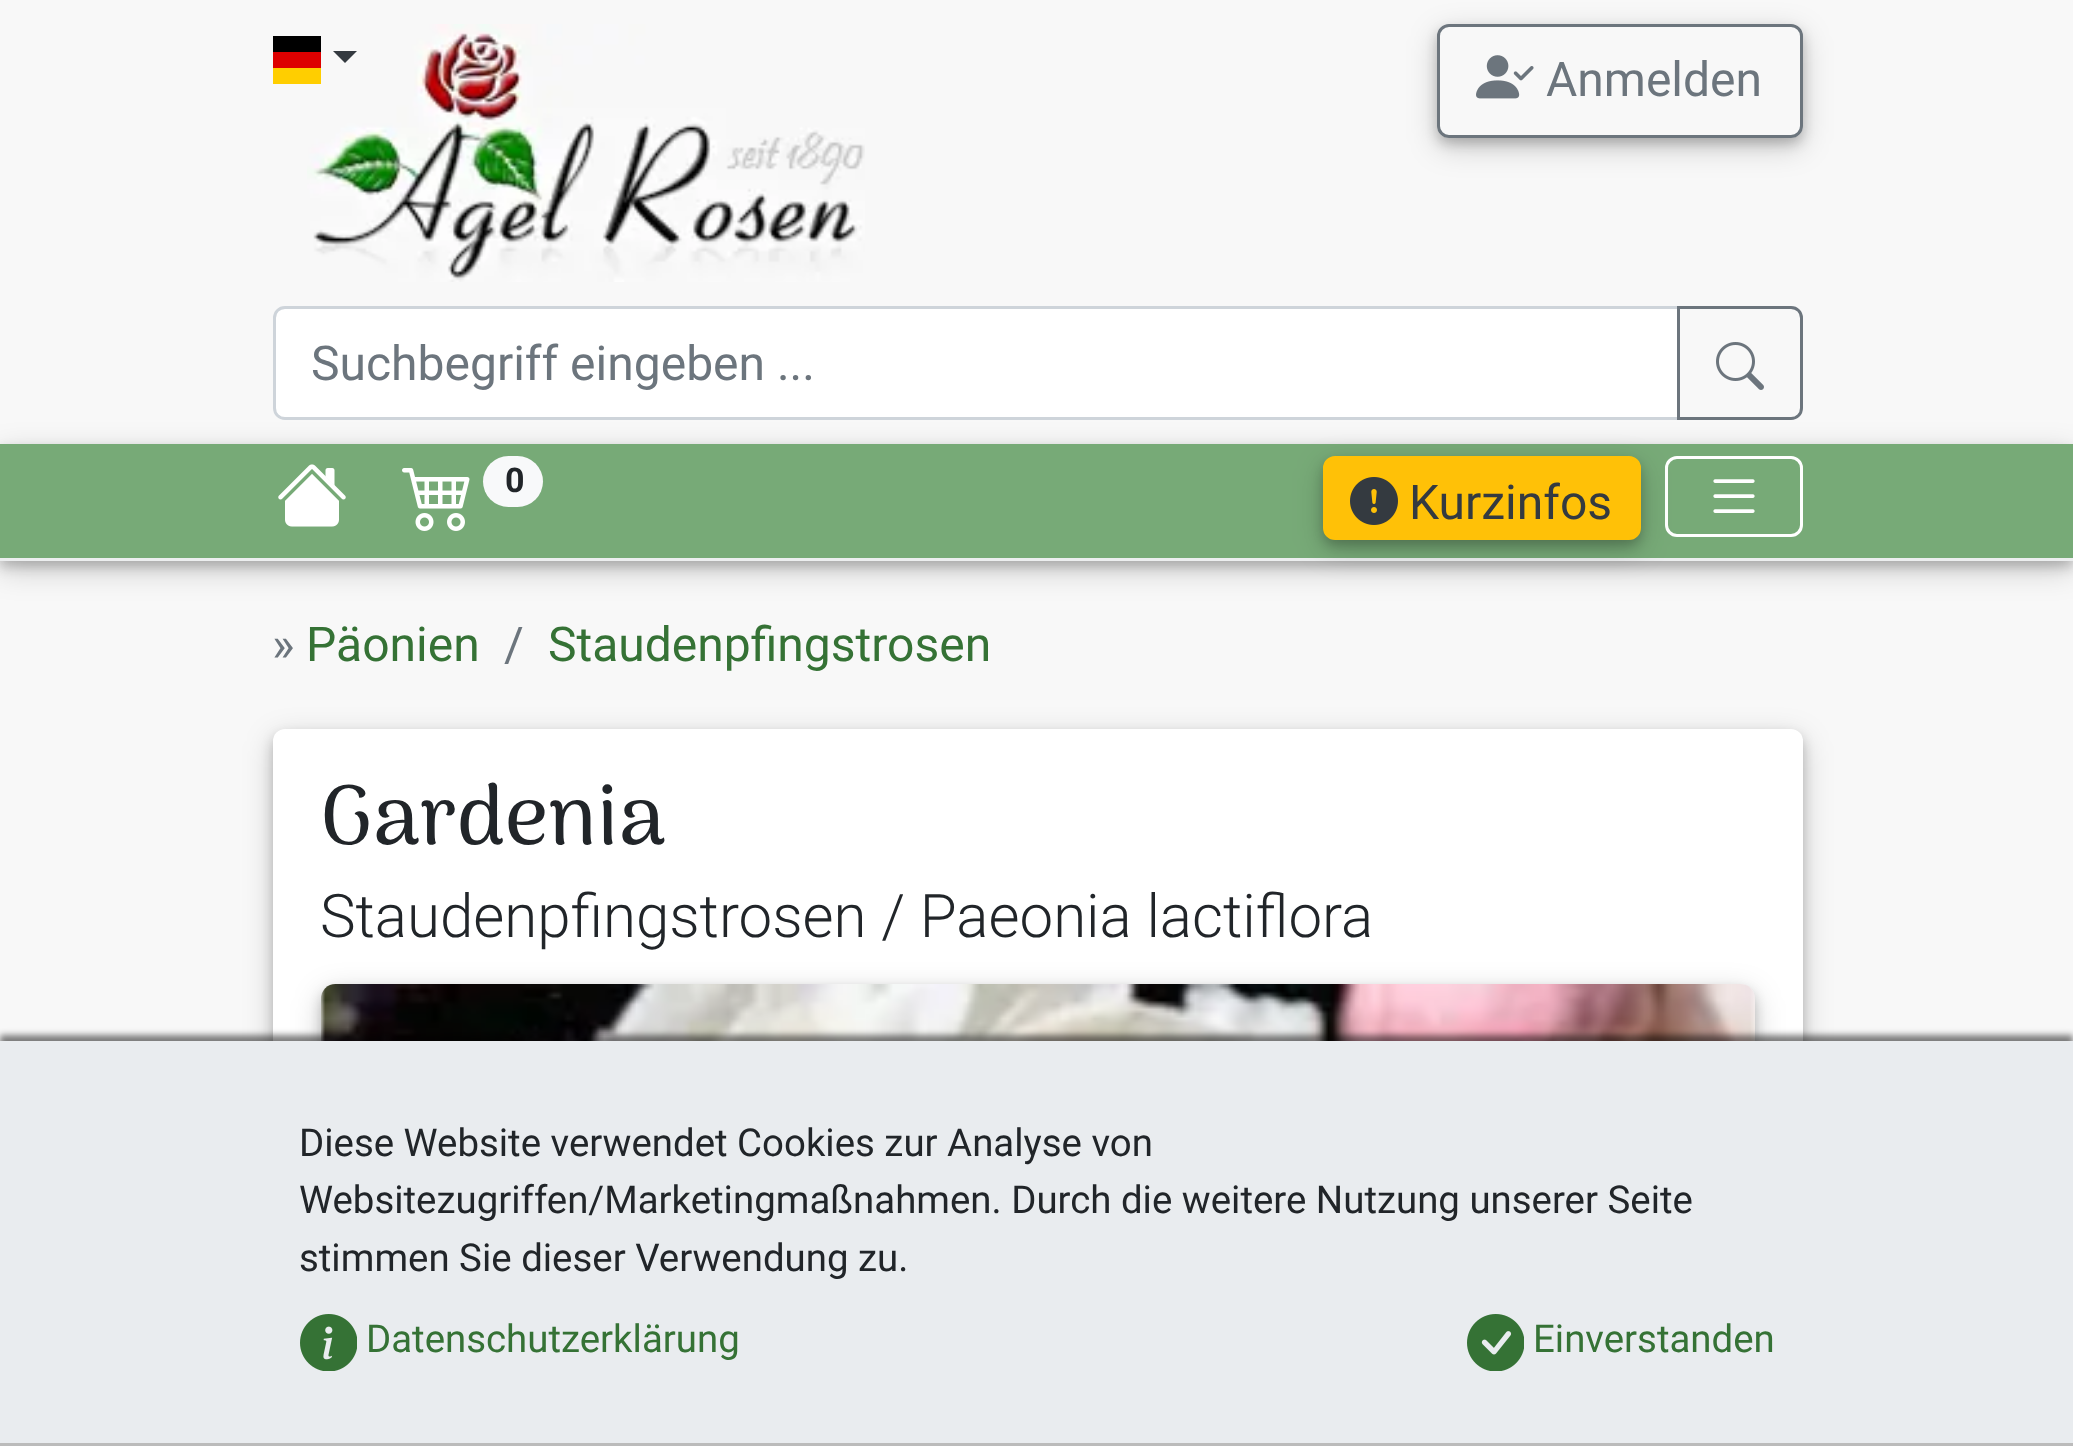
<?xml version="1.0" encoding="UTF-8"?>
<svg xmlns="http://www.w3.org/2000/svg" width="2073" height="1446">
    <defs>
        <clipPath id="clip1"><path d="M 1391 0 H 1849 V 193 H 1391 Z M 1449 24 H 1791 C 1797.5 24 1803 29.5 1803 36 V 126 C 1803 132.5 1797.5 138 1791 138 H 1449 C 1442.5 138 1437 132.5 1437 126 V 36 C 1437 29.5 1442.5 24 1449 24 Z" clip-rule="evenodd"/></clipPath>
        <filter id="blur1" x="-50%" y="-200%" width="200%" height="500%"><feGaussianBlur stdDeviation="15"/></filter>
        <clipPath id="clip2"><path d="M 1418 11 H 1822 V 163 H 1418 Z M 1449 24 H 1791 C 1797.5 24 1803 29.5 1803 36 V 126 C 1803 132.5 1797.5 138 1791 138 H 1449 C 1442.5 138 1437 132.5 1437 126 V 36 C 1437 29.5 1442.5 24 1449 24 Z" clip-rule="evenodd"/></clipPath>
        <filter id="blur2" x="-50%" y="-200%" width="200%" height="500%"><feGaussianBlur stdDeviation="6"/></filter>
        <clipPath id="clip3"><path d="M 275 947 H 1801 V 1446 H 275 Z M 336 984 H 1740 C 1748.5 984 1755 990.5 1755 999 V 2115 C 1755 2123.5 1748.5 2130 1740 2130 H 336 C 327.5 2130 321 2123.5 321 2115 V 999 C 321 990.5 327.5 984 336 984 Z" clip-rule="evenodd"/></clipPath>
        <clipPath id="clip4"><path d="M 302 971 H 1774 V 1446 H 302 Z M 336 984 H 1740 C 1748.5 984 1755 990.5 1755 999 V 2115 C 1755 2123.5 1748.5 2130 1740 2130 H 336 C 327.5 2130 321 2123.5 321 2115 V 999 C 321 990.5 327.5 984 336 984 Z" clip-rule="evenodd"/></clipPath>
        <filter id="blur3" x="-50%" y="-200%" width="200%" height="500%"><feGaussianBlur stdDeviation="3"/></filter>
    </defs>
    <rect width="100%" height="100%" fill="#F8F8F8"/>
    <image x="307" y="24" width="558" height="258" href="img_01.png"/>
    <rect x="273" y="68" width="48" height="16" fill="#FFCE00"/>
    <rect x="273" y="36" width="48" height="16" fill="#000000"/>
    <rect x="273" y="52" width="48" height="16" fill="#DD0000"/>
    <path d="M 333 51 H 357 L 345 63 Z" fill="#343A40"/>
    <g clip-path="url(#clip1)">
        <rect x="1437" y="33" width="366" height="114" rx="12" fill="#000000" fill-opacity="0.19" filter="url(#blur1)"/>
    </g>
    <g clip-path="url(#clip2)">
        <rect x="1437" y="30" width="366" height="114" rx="12" fill="#000000" fill-opacity="0.2" filter="url(#blur2)"/>
    </g>
    <rect x="1438.5" y="25.5" width="363" height="111" rx="10.5" fill="none" stroke="#6C757D" stroke-width="3"/>
    <image x="1476" y="55" width="58" height="44" href="img_02.png"/>
    <text x="1546" y="96" font-family="Roboto" font-size="48" fill="#6C757D">Anmelden</text>
    <path d="M 285 307.5 H 1678.5 V 418.5 H 285 C 279 418.5 274.5 414 274.5 408 V 318 C 274.5 312 279 307.5 285 307.5 Z" fill="#FFFFFF" stroke="#CED4DA" stroke-width="3"/>
    <text x="311" y="380" font-family="Roboto" font-size="48" fill="#6C757D">Suchbegriff eingeben ...</text>
    <rect x="0" y="453" width="2073" height="117" fill="#000000" fill-opacity="0.19" filter="url(#blur1)"/>
    <rect x="0" y="450" width="2073" height="117" fill="#000000" fill-opacity="0.2" filter="url(#blur2)"/>
    <rect x="0" y="444" width="2073" height="114" fill="#77AA77"/>
    <rect x="0" y="558" width="2073" height="3" fill="#ECEEEF"/>
    <rect x="1666.5" y="457.5" width="135" height="78" rx="10.5" fill="none" stroke="#FFFFFF" stroke-width="3"/>
    <rect x="1323" y="465" width="318" height="84" rx="12" fill="#000000" fill-opacity="0.19" filter="url(#blur1)"/>
    <path d="M 1678.5 307.5 H 1791 C 1797 307.5 1801.5 312 1801.5 318 V 408 C 1801.5 414 1797 418.5 1791 418.5 H 1678.5 Z" fill="none" stroke="#6C757D" stroke-width="3"/>
    <image x="1716" y="342" width="48" height="48" href="img_03.png"/>
    <image x="278" y="464" width="68" height="63" href="img_04.png"/>
    <image x="402" y="468" width="68" height="63" href="img_05.png"/>
    <rect x="483" y="456" width="60" height="51" rx="25.5" fill="#F8F9FA"/>
    <text x="505" y="492" font-family="Roboto" font-size="34" font-weight="700" fill="#212529">0</text>
    <rect x="1323" y="462" width="318" height="84" rx="12" fill="#000000" fill-opacity="0.2" filter="url(#blur2)"/>
    <rect x="1324.5" y="457.5" width="315" height="81" rx="10.5" fill="#FFC107" stroke="#FFC107" stroke-width="3"/>
    <image x="1350" y="477" width="48" height="48" href="img_06.png"/>
    <text x="1409" y="519" font-family="Roboto" font-size="48" fill="#343A40">Kurzinfos</text>
    <image x="1713" y="479" width="42" height="34" href="img_07.png"/>
    <text x="272" y="661" font-family="Roboto" font-size="48" fill="#6C757D">»</text>
    <text x="306" y="661" font-family="Roboto" font-size="48" fill="#357235">Päonien</text>
    <text x="504" y="661" font-family="Roboto" font-size="48" fill="#6C757D">/</text>
    <text x="548" y="661" font-family="Roboto" font-size="48" fill="#357235">Staudenpfingstrosen</text>
    <rect x="273" y="738" width="1530" height="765" rx="12" fill="#000000" fill-opacity="0.19" filter="url(#blur1)"/>
    <rect x="273" y="735" width="1530" height="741" rx="12" fill="#000000" fill-opacity="0.2" filter="url(#blur2)"/>
    <rect x="273" y="729" width="1530" height="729" rx="12" fill="#FFFFFF"/>
    <text x="320" y="844" font-family="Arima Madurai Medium" font-size="84" font-weight="500" fill="#212529">Gardenia</text>
    <text x="320" y="937" font-family="Roboto" font-size="60" font-weight="300" fill="#212529">Staudenpfingstrosen / Paeonia lactiflora</text>
    <g clip-path="url(#clip3)">
        <rect x="321" y="993" width="1434" height="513" rx="15" fill="#000000" fill-opacity="0.19" filter="url(#blur1)"/>
    </g>
    <g clip-path="url(#clip4)">
        <rect x="321" y="990" width="1434" height="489" rx="15" fill="#000000" fill-opacity="0.2" filter="url(#blur2)"/>
    </g>
    <image x="321" y="984" width="1434" height="57" href="img_08.png"/>
    <rect x="0" y="1035" width="2073" height="405" fill="#000000" fill-opacity="0.5" filter="url(#blur3)"/>
    <rect x="0" y="1041" width="2073" height="402" fill="#E9ECEF"/>
    <rect x="0" y="1443" width="2073" height="3" fill="#BBBBBB"/>
    <text font-family="Roboto" font-size="38.4" fill="#212529">
        <tspan x="299" y="1156">Diese Website verwendet Cookies zur Analyse von</tspan>
        <tspan x="299" y="1213">Websitezugriffen/Marketingmaßnahmen. Durch die weitere Nutzung unserer Seite</tspan>
        <tspan x="299" y="1271">stimmen Sie dieser Verwendung zu.</tspan>
    </text>
    <image x="300" y="1314" width="57" height="57" href="img_09.png"/>
    <text x="366" y="1352" font-family="Roboto" font-size="38.4" fill="#357235">Datenschutzerklärung</text>
    <image x="1467" y="1314" width="57" height="57" href="img_10.png"/>
    <text x="1533" y="1352" font-family="Roboto" font-size="38.4" fill="#357235">Einverstanden</text>
</svg>
